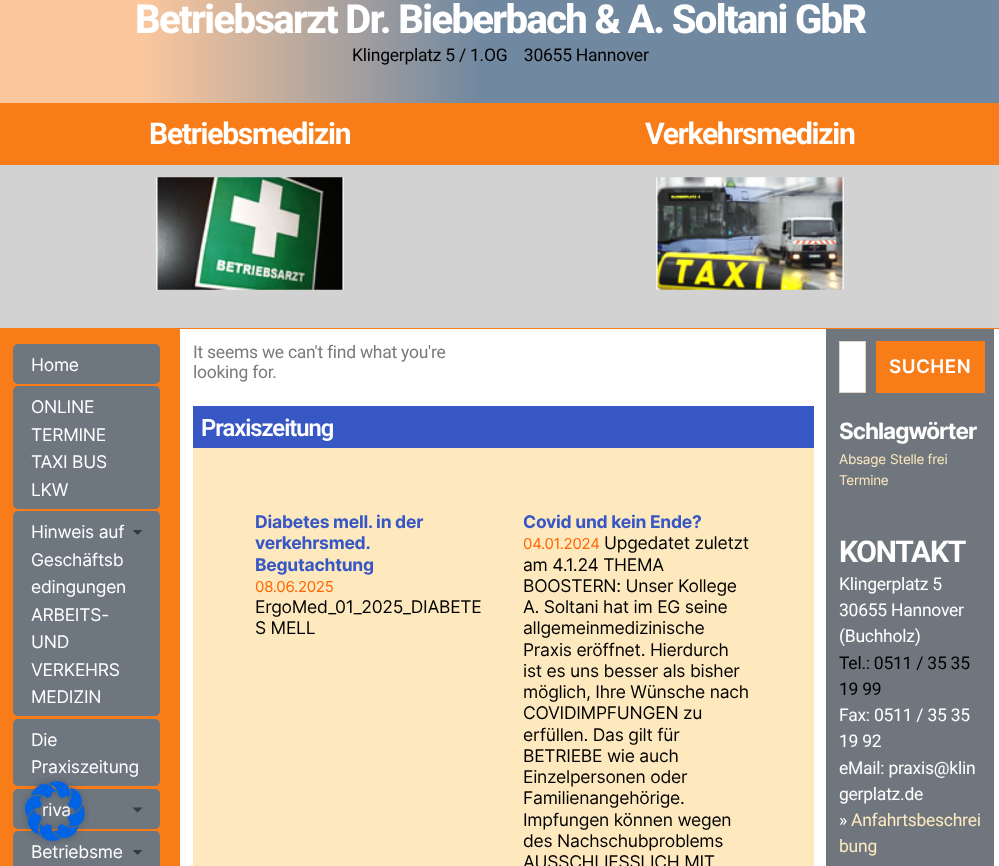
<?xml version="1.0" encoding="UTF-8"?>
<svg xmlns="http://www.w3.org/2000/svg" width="999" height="866">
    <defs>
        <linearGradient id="g1" gradientUnits="userSpaceOnUse" x1="0" y1="32" x2="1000" y2="32"><stop offset="0.14" stop-color="#FCC79C"/><stop offset="0.48" stop-color="#7088A0"/></linearGradient>
    </defs>
    <rect width="100%" height="100%" fill="#F87D19"/>
    <rect x="0" y="0" width="999" height="103" fill="url(#g1)"/>
    <text x="135" y="33" font-family="Roboto" font-size="40" font-weight="800" letter-spacing="-1.65" fill="#FFFFFF">Betriebsarzt Dr. Bieberbach &amp; A. Soltani GbR</text>
    <text x="352" y="61" font-family="Roboto" font-size="17.5" letter-spacing="-0.25" fill="#000000" xml:space="preserve">Klingerplatz 5 / 1.OG    30655 Hannover</text>
    <text x="149" y="144" font-family="Roboto" font-size="30" font-weight="700" letter-spacing="-1.25" fill="#FFFFFF">Betriebsmedizin</text>
    <text x="645" y="144" font-family="Roboto" font-size="30" font-weight="700" letter-spacing="-1.25" fill="#FFFFFF">Verkehrsmedizin</text>
    <rect x="0" y="165" width="999" height="163" fill="#D2D2D2"/>
    <image x="156" y="177" width="188" height="113" href="img_01.png"/>
    <image x="656" y="177" width="188" height="113" href="img_02.png"/>
    <rect x="180" y="329" width="819" height="537" fill="#FFFFFF"/>
    <rect x="13" y="344" width="147" height="40" rx="5" fill="#6E7680"/>
    <text x="31" y="371" font-family="Inter" font-size="17.5" letter-spacing="-0.25" fill="#FFFFFF">Home</text>
    <rect x="13" y="386" width="147" height="123" rx="5" fill="#6E7680"/>
    <text font-family="Inter" font-size="17.5" letter-spacing="-0.25" fill="#FFFFFF">
        <tspan x="31" y="413">ONLINE</tspan>
        <tspan x="31" y="441">TERMINE</tspan>
        <tspan x="31" y="468">TAXI BUS</tspan>
        <tspan x="31" y="496">LKW</tspan>
    </text>
    <rect x="13" y="511" width="147" height="205" rx="5" fill="#6E7680"/>
    <text x="31" y="538" font-family="Inter" font-size="17.5" letter-spacing="-0.25" fill="#FFFFFF">Hinweis auf</text>
    <path d="M 132.5 530 H 142.5 L 137.5 535 Z" fill="#373B40"/>
    <text font-family="Inter" font-size="17.5" letter-spacing="-0.25" fill="#FFFFFF">
        <tspan x="31" y="566">Geschäftsb</tspan>
        <tspan x="31" y="593">edingungen</tspan>
        <tspan x="31" y="621">ARBEITS-</tspan>
        <tspan x="31" y="648">UND</tspan>
        <tspan x="31" y="676">VERKEHRS</tspan>
        <tspan x="31" y="703">MEDIZIN</tspan>
    </text>
    <rect x="13" y="719" width="147" height="67" rx="5" fill="#6E7680"/>
    <text font-family="Inter" font-size="17.5" letter-spacing="-0.25" fill="#FFFFFF">
        <tspan x="31" y="746">Die</tspan>
        <tspan x="31" y="773">Praxiszeitung</tspan>
    </text>
    <rect x="13" y="789" width="147" height="40" rx="5" fill="#6E7680"/>
    <text x="42" y="816" font-family="Inter" font-size="17.5" letter-spacing="-0.25" fill="#FFFFFF">riva</text>
    <path d="M 132.5 807.5 H 142.5 L 137.5 812.5 Z" fill="#373B40"/>
    <rect x="13" y="831" width="147" height="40" rx="5" fill="#6E7680"/>
    <text x="31" y="858" font-family="Inter" font-size="17.5" letter-spacing="-0.25" fill="#FFFFFF">Betriebsme</text>
    <path d="M 132.5 850 H 142.5 L 137.5 855 Z" fill="#373B40"/>
    <text font-family="Roboto" font-size="17.5" letter-spacing="-0.25" fill="#7A7A7A">
        <tspan x="193" y="358">It seems we can't find what you're</tspan>
        <tspan x="193" y="378">looking for.</tspan>
    </text>
    <rect x="193" y="406" width="621" height="42" fill="#3757C4"/>
    <text x="201" y="436" font-family="Roboto" font-size="23.75" font-weight="600" letter-spacing="-1" fill="#FFFFFF">Praxiszeitung</text>
    <rect x="193" y="448" width="621" height="418" fill="#FEE9BF"/>
    <text font-family="Inter" font-size="17.5" font-weight="700" letter-spacing="-0.25" fill="#3757C4">
        <tspan x="255" y="528">Diabetes mell. in der</tspan>
        <tspan x="255" y="549">verkehrsmed.</tspan>
        <tspan x="255" y="571">Begutachtung</tspan>
    </text>
    <text x="255" y="592" font-family="Inter" font-size="15" letter-spacing="-0.25" fill="#FF6600">08.06.2025</text>
    <text font-family="Inter" font-size="17.5" letter-spacing="-0.25" fill="#000000">
        <tspan x="255" y="613">ErgoMed_01_2025_DIABETE</tspan>
        <tspan x="255" y="634">S MELL</tspan>
    </text>
    <text x="523" y="528" font-family="Inter" font-size="17.5" font-weight="700" letter-spacing="-0.25" fill="#3757C4">Covid und kein Ende?</text>
    <text x="523" y="549" font-family="Inter" font-size="15" letter-spacing="-0.25" fill="#FF6600">04.01.2024</text>
    <text x="604" y="549" font-family="Inter" font-size="17.5" letter-spacing="-0.25" fill="#000000">Upgedatet zuletzt</text>
    <text font-family="Inter" font-size="17.5" letter-spacing="-0.25" fill="#000000">
        <tspan x="523" y="571">am 4.1.24 THEMA</tspan>
        <tspan x="523" y="592">BOOSTERN: Unser Kollege</tspan>
        <tspan x="523" y="613">A. Soltani hat im EG seine</tspan>
        <tspan x="523" y="634">allgemeinmedizinische</tspan>
        <tspan x="523" y="656">Praxis eröffnet. Hierdurch</tspan>
        <tspan x="523" y="677">ist es uns besser als bisher</tspan>
        <tspan x="523" y="698">möglich, Ihre Wünsche nach</tspan>
        <tspan x="523" y="719">COVIDIMPFUNGEN zu</tspan>
        <tspan x="523" y="741">erfüllen. Das gilt für</tspan>
        <tspan x="523" y="762">BETRIEBE wie auch</tspan>
        <tspan x="523" y="783">Einzelpersonen oder</tspan>
        <tspan x="523" y="804">Familienangehörige.</tspan>
        <tspan x="523" y="826">Impfungen können wegen</tspan>
        <tspan x="523" y="847">des Nachschubproblems</tspan>
        <tspan x="523" y="868">AUSSCHLIESSLICH MIT</tspan>
    </text>
    <rect x="826" y="329" width="168" height="537" fill="#6F767D"/>
    <rect x="839.5" y="341.5" width="26" height="51" fill="#FFFFFF" stroke="#DCD7CA"/>
    <rect x="876" y="341" width="109" height="52" fill="#F87D19"/>
    <text x="889" y="373" font-family="Inter" font-size="18.75" font-weight="600" letter-spacing="0.5" fill="#FFFFFF">SUCHEN</text>
    <text x="839" y="439" font-family="Inter" font-size="22.5" font-weight="700" letter-spacing="-1" fill="#FFFFFF">Schlagwörter</text>
    <text x="839" y="464" font-family="Inter" font-size="13.5" letter-spacing="-0.25" fill="#FDE9BF">Absage</text>
    <text x="890" y="464" font-family="Inter" font-size="13.5" letter-spacing="-0.25" fill="#FDE9BF">Stelle frei</text>
    <text x="839" y="485" font-family="Inter" font-size="13.5" letter-spacing="-0.25" fill="#FDE9BF">Termine</text>
    <text x="839" y="562" font-family="Roboto" font-size="30" font-weight="700" letter-spacing="-1.25" fill="#FFFFFF">KONTAKT</text>
    <text font-family="Roboto" font-size="17.5" letter-spacing="-0.25" fill="#FFFFFF">
        <tspan x="839" y="590">Klingerplatz 5</tspan>
        <tspan x="839" y="616">30655 Hannover</tspan>
        <tspan x="839" y="642">(Buchholz)</tspan>
    </text>
    <text font-family="Roboto" font-size="17.5" letter-spacing="-0.25" fill="#000000">
        <tspan x="839" y="669">Tel.: 0511 / 35 35</tspan>
        <tspan x="839" y="695">19 99</tspan>
    </text>
    <text font-family="Roboto" font-size="17.5" letter-spacing="-0.25" fill="#FFFFFF">
        <tspan x="839" y="721">Fax: 0511 / 35 35</tspan>
        <tspan x="839" y="747">19 92</tspan>
        <tspan x="839" y="774">eMail: praxis@klin</tspan>
        <tspan x="839" y="800">gerplatz.de</tspan>
        <tspan x="839" y="826">»</tspan>
    </text>
    <text x="851" y="826" font-family="Roboto" font-size="17.5" letter-spacing="-0.25" fill="#FDE9BF">Anfahrtsbeschrei</text>
    <text x="839" y="852" font-family="Roboto" font-size="17.5" letter-spacing="-0.25" fill="#FDE9BF">bung</text>
    <image x="21" y="777" width="68" height="68" href="img_03.png"/>
</svg>
